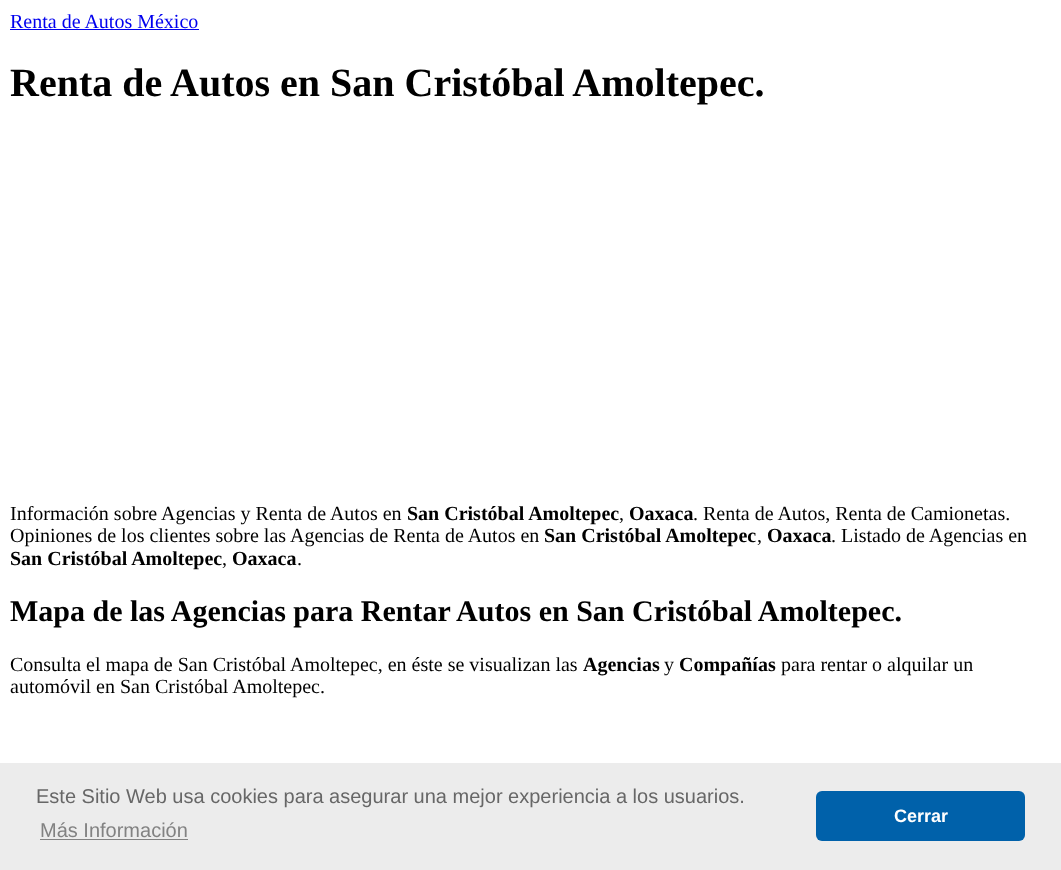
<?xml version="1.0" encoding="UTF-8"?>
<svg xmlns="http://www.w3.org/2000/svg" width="1061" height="870">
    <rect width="100%" height="100%" fill="#FFFFFF"/>
    <text x="10" y="28" font-family="Liberation Serif" font-size="20" fill="#0000EE">Renta de Autos México</text>
    <rect x="10" y="29" width="189" height="1" fill="#0000EE"/>
    <text x="10" y="96" font-family="Liberation Serif" font-size="40" font-weight="700" fill="#000000">Renta de Autos en San Cristóbal Amoltepec.</text>
    <text x="10" y="520" font-family="Liberation Serif" font-size="20" fill="#000000">Información sobre Agencias y Renta de Autos en</text>
    <text x="407" y="520" font-family="Liberation Serif" font-size="20" font-weight="700" fill="#000000">San Cristóbal Amoltepec</text>
    <text x="619" y="520" font-family="Liberation Serif" font-size="20" fill="#000000">,</text>
    <text x="629" y="520" font-family="Liberation Serif" font-size="20" font-weight="700" fill="#000000">Oaxaca</text>
    <text x="693" y="520" font-family="Liberation Serif" font-size="20" fill="#000000">. Renta de Autos, Renta de Camionetas.</text>
    <text x="10" y="542" font-family="Liberation Serif" font-size="20" fill="#000000">Opiniones de los clientes sobre las Agencias de Renta de Autos en</text>
    <text x="544" y="542" font-family="Liberation Serif" font-size="20" font-weight="700" fill="#000000">San Cristóbal Amoltepec</text>
    <text x="757" y="542" font-family="Liberation Serif" font-size="20" fill="#000000">,</text>
    <text x="767" y="542" font-family="Liberation Serif" font-size="20" font-weight="700" fill="#000000">Oaxaca</text>
    <text x="831" y="542" font-family="Liberation Serif" font-size="20" fill="#000000">. Listado de Agencias en</text>
    <text x="10" y="565" font-family="Liberation Serif" font-size="20" font-weight="700" fill="#000000">San Cristóbal Amoltepec</text>
    <text x="222" y="565" font-family="Liberation Serif" font-size="20" fill="#000000">,</text>
    <text x="232" y="565" font-family="Liberation Serif" font-size="20" font-weight="700" fill="#000000">Oaxaca</text>
    <text x="297" y="565" font-family="Liberation Serif" font-size="20" fill="#000000">.</text>
    <text x="10" y="621" font-family="Liberation Serif" font-size="30" font-weight="700" fill="#000000">Mapa de las Agencias para Rentar Autos en San Cristóbal Amoltepec.</text>
    <text x="10" y="671" font-family="Liberation Serif" font-size="20" fill="#000000">Consulta el mapa de San Cristóbal Amoltepec, en éste se visualizan las</text>
    <text x="583" y="671" font-family="Liberation Serif" font-size="20" font-weight="700" fill="#000000">Agencias</text>
    <text x="664" y="671" font-family="Liberation Serif" font-size="20" fill="#000000">y</text>
    <text x="679" y="671" font-family="Liberation Serif" font-size="20" font-weight="700" fill="#000000">Compañías</text>
    <text x="781" y="671" font-family="Liberation Serif" font-size="20" fill="#000000">para rentar o alquilar un</text>
    <text x="10" y="693" font-family="Liberation Serif" font-size="20" fill="#000000">automóvil en San Cristóbal Amoltepec.</text>
    <rect x="0" y="763" width="1061" height="107" fill="#ECECEC"/>
    <text x="36" y="803" font-family="Liberation Sans" font-size="20" fill="#676767">Este Sitio Web usa cookies para asegurar una mejor experiencia a los usuarios.</text>
    <text x="40" y="837" font-family="Liberation Sans" font-size="20" fill="#828282">Más Información</text>
    <rect x="40" y="839" width="148" height="1" fill="#828282"/>
    <rect x="816" y="791" width="209" height="50" rx="6" fill="#0061AA"/>
    <text x="894" y="822" font-family="Liberation Sans" font-size="18" font-weight="700" fill="#FFFFFF">Cerrar</text>
</svg>
